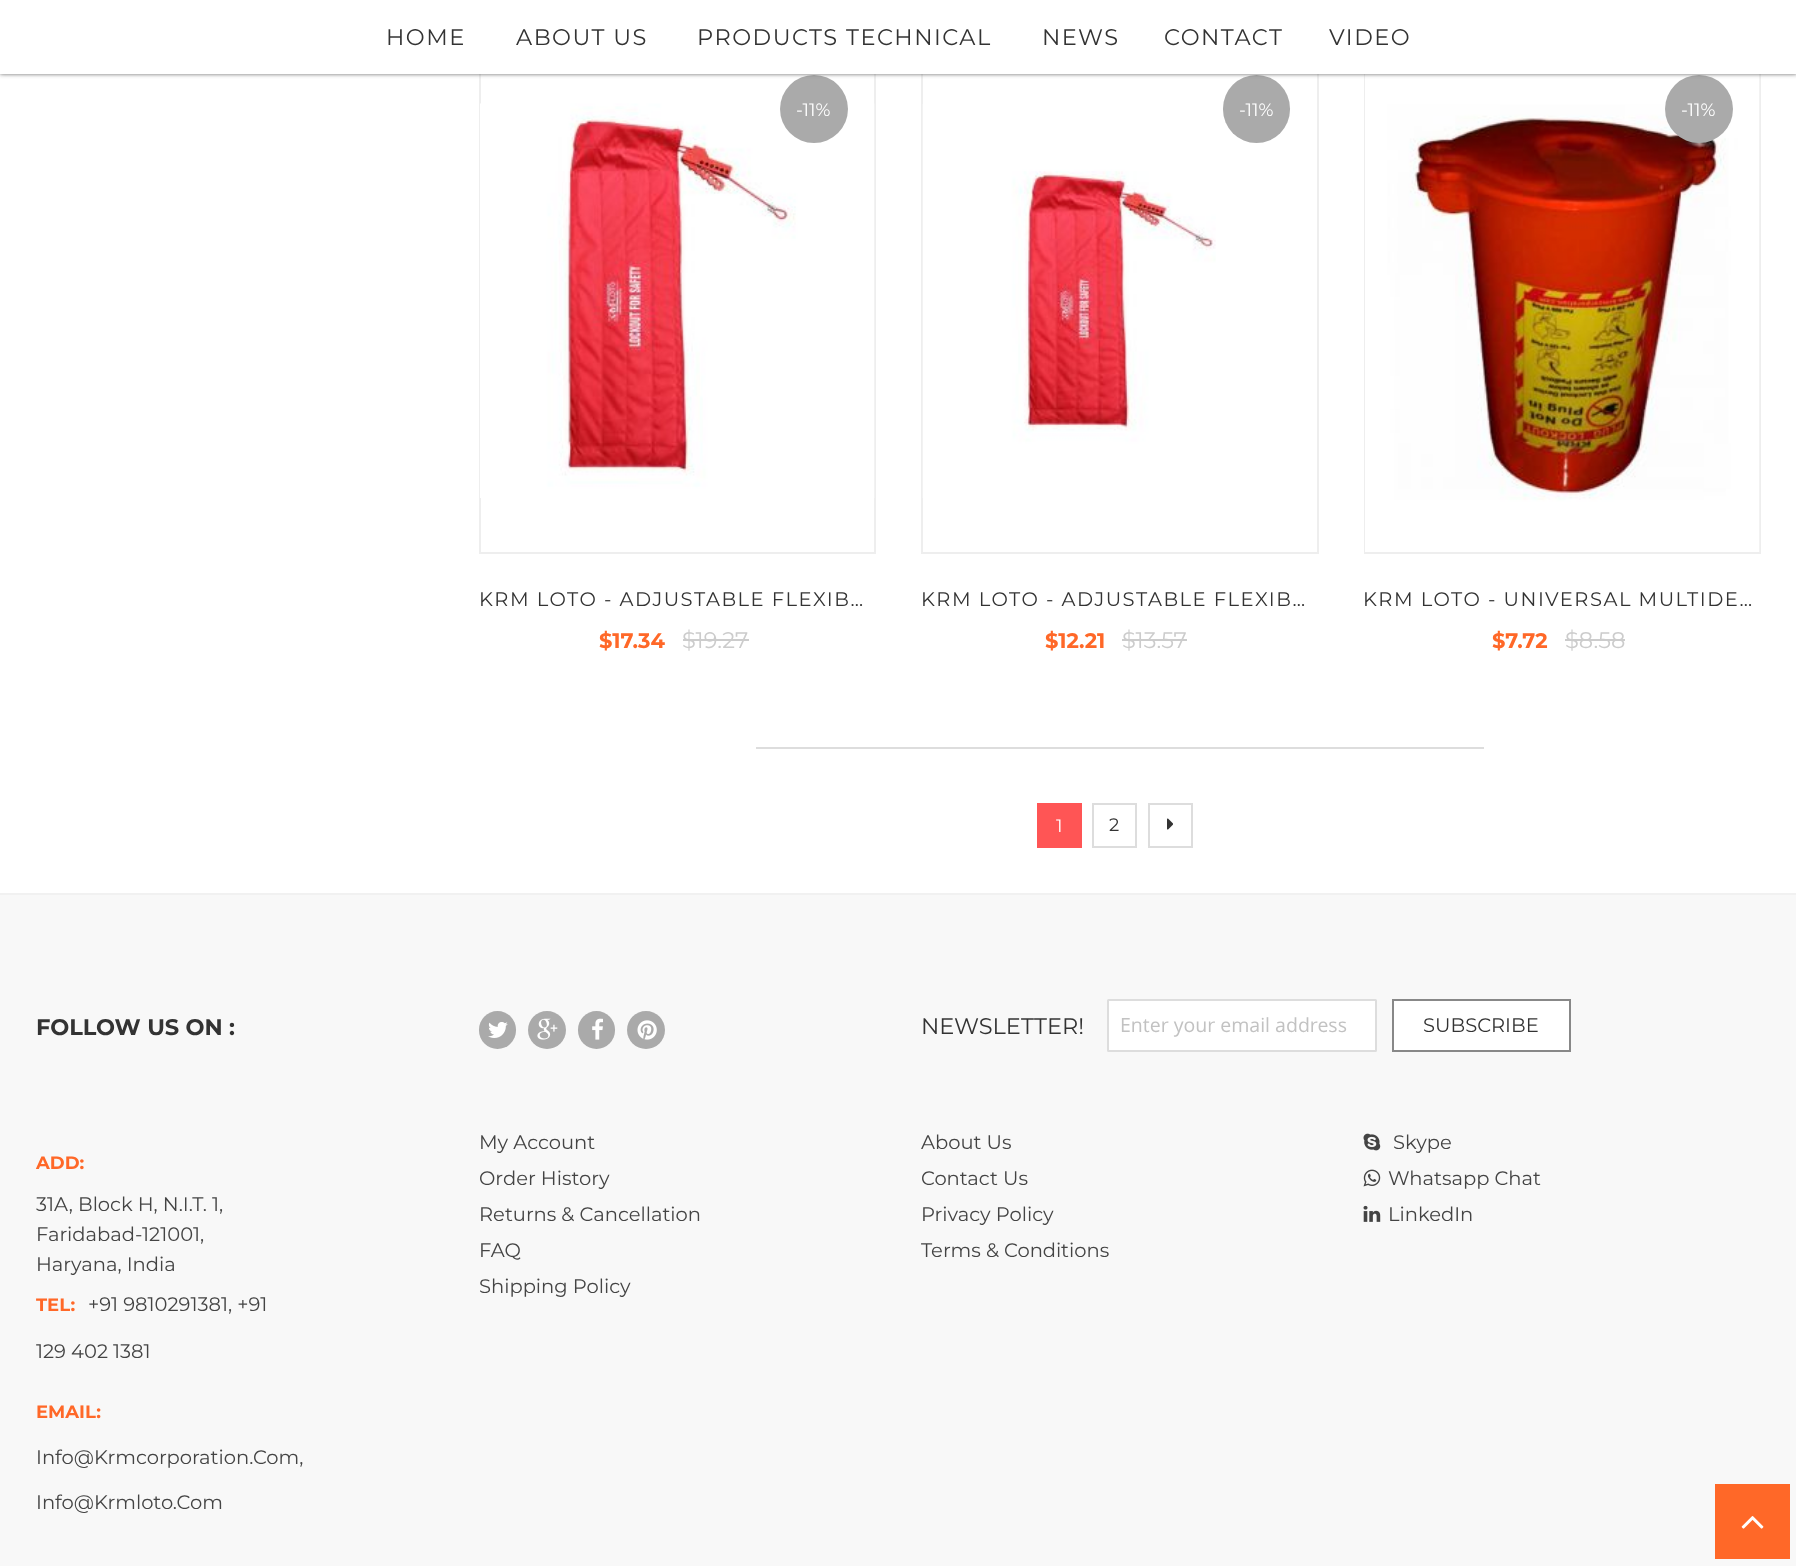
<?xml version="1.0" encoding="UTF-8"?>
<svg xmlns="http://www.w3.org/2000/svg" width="1796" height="1566">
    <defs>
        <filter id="blur1" x="-50%" y="-200%" width="200%" height="500%"><feGaussianBlur stdDeviation="2"/></filter>
    </defs>
    <rect width="100%" height="100%" fill="#FFFFFF"/>
    <rect x="480" y="48" width="395" height="505" fill="none" stroke="#EEEEEE" stroke-width="2"/>
    <image x="480" y="103" width="395" height="395" href="img_01.png"/>
    <circle cx="814" cy="109" r="34" fill="#AAAAAA"/>
    <rect x="922" y="48" width="396" height="505" fill="none" stroke="#EEEEEE" stroke-width="2"/>
    <rect x="1223" y="75" width="67" height="68" rx="33.5" fill="#AAAAAA"/>
    <rect x="1365" y="48" width="395" height="505" fill="none" stroke="#EEEEEE" stroke-width="2"/>
    <image x="1365" y="74" width="395" height="478" href="img_03.png"/>
    <circle cx="1699" cy="109" r="34" fill="#AAAAAA"/>
    <rect x="0" y="0" width="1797" height="74" fill="#666666" filter="url(#blur1)"/>
    <rect x="0" y="0" width="1796" height="74" fill="#FFFFFF"/>
    <text x="386" y="45" font-family="Montserrat" font-size="22.5" letter-spacing="1.5" fill="#333333">HOME</text>
    <text x="516" y="45" font-family="Montserrat" font-size="22.5" letter-spacing="1.5" fill="#333333">ABOUT US</text>
    <text x="697" y="45" font-family="Montserrat" font-size="22.5" letter-spacing="1.5" fill="#333333">PRODUCTS TECHNICAL</text>
    <text x="1042" y="45" font-family="Montserrat" font-size="22.5" letter-spacing="1.5" fill="#333333">NEWS</text>
    <text x="1164" y="45" font-family="Montserrat" font-size="22.5" letter-spacing="1.5" fill="#333333">CONTACT</text>
    <text x="1329" y="45" font-family="Montserrat" font-size="22.5" letter-spacing="1.5" fill="#333333">VIDEO</text>
    <text x="796" y="116" font-family="Montserrat" font-size="18" fill="#FFFFFF">-11%</text>
    <text x="479" y="606" font-family="Montserrat" font-size="19.5" letter-spacing="1.5" fill="#333333">KRM LOTO - ADJUSTABLE FLEXIB…</text>
    <text x="599" y="648" font-family="Montserrat" font-size="21" font-weight="700" fill="#FF6828">$17.34</text>
    <text x="682" y="648" font-family="Montserrat" font-size="22.5" fill="#CCCCCC">$19.27</text>
    <rect x="683" y="639" width="66" height="2" fill="#CCCCCC"/>
    <image x="922" y="104" width="294" height="394" href="img_02.png"/>
    <text x="1239" y="116" font-family="Montserrat" font-size="18" fill="#FFFFFF">-11%</text>
    <text x="921" y="606" font-family="Montserrat" font-size="19.5" letter-spacing="1.5" fill="#333333">KRM LOTO - ADJUSTABLE FLEXIB…</text>
    <text x="1045" y="648" font-family="Montserrat" font-size="21" font-weight="700" fill="#FF6828">$12.21</text>
    <text x="1122" y="648" font-family="Montserrat" font-size="22.5" fill="#CCCCCC">$13.57</text>
    <rect x="1122" y="639" width="65" height="2" fill="#CCCCCC"/>
    <text x="1681" y="116" font-family="Montserrat" font-size="18" fill="#FFFFFF">-11%</text>
    <text x="1363" y="606" font-family="Montserrat" font-size="19.5" letter-spacing="1.5" fill="#333333">KRM LOTO - UNIVERSAL MULTIDE…</text>
    <text x="1492" y="648" font-family="Montserrat" font-size="21" font-weight="700" fill="#FF6828">$7.72</text>
    <text x="1565" y="648" font-family="Montserrat" font-size="22.5" fill="#CCCCCC">$8.58</text>
    <rect x="1565" y="639" width="60" height="2" fill="#CCCCCC"/>
    <rect x="756" y="747" width="728" height="2" fill="#DDDDDD"/>
    <rect x="1037" y="803" width="45" height="45" fill="#FF5555"/>
    <text x="1056" y="832" font-family="Montserrat" font-size="18" fill="#FFFFFF">1</text>
    <rect x="1093" y="804" width="43" height="43" fill="none" stroke="#DDDDDD" stroke-width="2"/>
    <text x="1109" y="831" font-family="Montserrat" font-size="18" fill="#333333">2</text>
    <rect x="1149" y="804" width="43" height="43" fill="none" stroke="#DDDDDD" stroke-width="2"/>
    <image x="1167" y="818" width="6" height="12" href="img_04.png"/>
    <rect x="0" y="895" width="1796" height="671" fill="#F8F8F8"/>
    <rect x="0" y="893" width="1796" height="2" fill="#F1F1F1"/>
    <text x="36" y="1035" font-family="Montserrat" font-size="22.5" font-weight="700" fill="#333333">FOLLOW US ON :</text>
    <rect x="479" y="1011" width="37" height="38" rx="18.5" fill="#AAAAAA"/>
    <image x="488" y="1022" width="20" height="16" href="img_05.png"/>
    <circle cx="547" cy="1030" r="19" fill="#AAAAAA"/>
    <image x="537" y="1018" width="21" height="22" href="img_06.png"/>
    <rect x="578" y="1011" width="37" height="38" rx="18.5" fill="#AAAAAA"/>
    <image x="592" y="1018" width="11" height="22" href="img_07.png"/>
    <circle cx="646" cy="1030" r="19" fill="#AAAAAA"/>
    <image x="637" y="1020" width="20" height="20" href="img_08.png"/>
    <text x="921" y="1034" font-family="Montserrat" font-size="22.5" fill="#333333">NEWSLETTER!</text>
    <rect x="1108" y="1000" width="268" height="51" rx="0.5" fill="#FFFFFF" stroke="#DDDDDD" stroke-width="2"/>
    <text x="1120" y="1032" font-family="Open Sans" font-size="19.5" fill="#C2C2C2">Enter your email address</text>
    <rect x="1393" y="1000" width="177" height="51" fill="#FFFFFF" stroke="#888888" stroke-width="2"/>
    <text x="1423" y="1032" font-family="Montserrat" font-size="19.5" fill="#333333">SUBSCRIBE</text>
    <text x="36" y="1169" font-family="Montserrat" font-size="18" font-weight="700" fill="#FF6828">ADD:</text>
    <text font-family="Montserrat" font-size="19.5" fill="#444444">
        <tspan x="36" y="1211">31A, Block H, N.I.T. 1,</tspan>
        <tspan x="36" y="1241">Faridabad-121001,</tspan>
        <tspan x="36" y="1271">Haryana, India</tspan>
    </text>
    <text x="36" y="1311" font-family="Montserrat" font-size="18" font-weight="700" fill="#FF6828">TEL:</text>
    <text x="88" y="1311" font-family="Montserrat" font-size="19.5" fill="#444444">+91 9810291381, +91</text>
    <text x="36" y="1358" font-family="Montserrat" font-size="19.5" fill="#444444">129 402 1381</text>
    <text x="36" y="1418" font-family="Montserrat" font-size="18" font-weight="700" fill="#FF6828">EMAIL:</text>
    <text x="36" y="1464" font-family="Montserrat" font-size="19.5" fill="#444444">Info@Krmcorporation.Com,</text>
    <text x="36" y="1509" font-family="Montserrat" font-size="19.5" fill="#444444">Info@Krmloto.Com</text>
    <text font-family="Montserrat" font-size="19.5" fill="#444444">
        <tspan x="479" y="1149">My Account</tspan>
        <tspan x="479" y="1185">Order History</tspan>
        <tspan x="479" y="1221">Returns &amp; Cancellation</tspan>
        <tspan x="479" y="1257">FAQ</tspan>
        <tspan x="479" y="1293">Shipping Policy</tspan>
    </text>
    <text font-family="Montserrat" font-size="19.5" fill="#444444">
        <tspan x="921" y="1149">About Us</tspan>
        <tspan x="921" y="1185">Contact Us</tspan>
        <tspan x="921" y="1221">Privacy Policy</tspan>
        <tspan x="921" y="1257">Terms &amp; Conditions</tspan>
    </text>
    <image x="1363" y="1133" width="18" height="18" href="img_09.png"/>
    <text x="1393" y="1149" font-family="Montserrat" font-size="19.5" fill="#444444">Skype</text>
    <image x="1363" y="1169" width="18" height="18" href="img_10.png"/>
    <text x="1388" y="1185" font-family="Montserrat" font-size="19.5" fill="#444444">Whatsapp Chat</text>
    <image x="1363" y="1205" width="18" height="17" href="img_11.png"/>
    <text x="1388" y="1221" font-family="Montserrat" font-size="19.5" fill="#444444">LinkedIn</text>
    <rect x="1715" y="1484" width="75" height="75" fill="#FF6828"/>
    <image x="1741" y="1516" width="23" height="13" href="img_12.png"/>
</svg>
